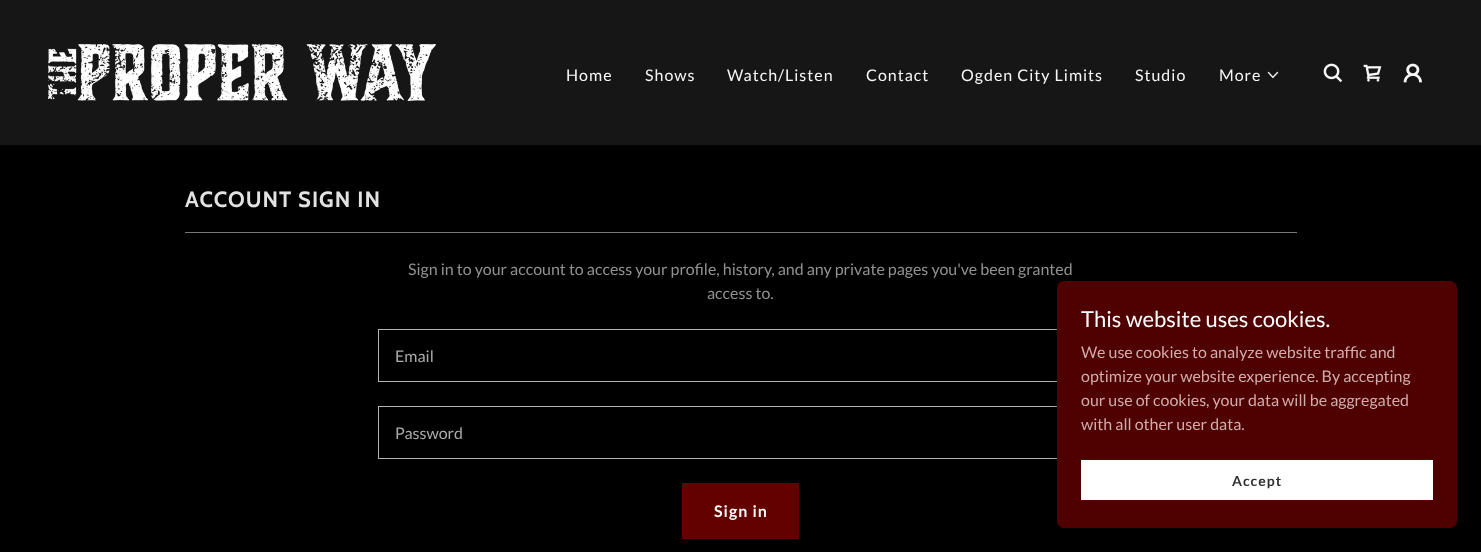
<?xml version="1.0" encoding="UTF-8"?>
<svg xmlns="http://www.w3.org/2000/svg" width="1481" height="552">
    <defs>
        <filter id="blur1" x="-50%" y="-200%" width="200%" height="500%"><feGaussianBlur stdDeviation="3"/></filter>
    </defs>
    <rect width="100%" height="100%" fill="#161616"/>
    <image x="48" y="44" width="388" height="57" href="img_01.png"/>
    <text x="566" y="81" font-family="Lato" font-size="16" letter-spacing="1" fill="#F7F7F7">Home</text>
    <text x="645" y="81" font-family="Lato" font-size="16" letter-spacing="1" fill="#F7F7F7">Shows</text>
    <text x="727" y="81" font-family="Lato" font-size="16" letter-spacing="1" fill="#F7F7F7">Watch/Listen</text>
    <text x="866" y="81" font-family="Lato" font-size="16" letter-spacing="1" fill="#F7F7F7">Contact</text>
    <text x="961" y="81" font-family="Lato" font-size="16" letter-spacing="1" fill="#F7F7F7">Ogden City Limits</text>
    <text x="1135" y="81" font-family="Lato" font-size="16" letter-spacing="1" fill="#F7F7F7">Studio</text>
    <text x="1219" y="81" font-family="Lato" font-size="16" letter-spacing="1" fill="#F7F7F7">More</text>
    <image x="1267" y="71" width="12" height="8" href="img_02.png"/>
    <image x="1323" y="63" width="20" height="20" href="img_03.png"/>
    <image x="1363" y="64" width="19" height="18" href="img_04.png"/>
    <image x="1403" y="63" width="19" height="20" href="img_05.png"/>
    <rect x="0" y="145" width="1481" height="407" fill="#000000"/>
    <text x="185" y="207" font-family="Cabin" font-size="22" font-weight="700" letter-spacing="1" fill="#E2E2E2">ACCOUNT SIGN IN</text>
    <rect x="185" y="232" width="1112" height="1" fill="#777777"/>
    <text x="408" y="275" font-family="Lato" font-size="16" fill="#919191">Sign in to your account to access your profile, history, and any private pages you've been granted</text>
    <text x="707" y="299" font-family="Lato" font-size="16" fill="#919191">access to.</text>
    <rect x="378.5" y="329.5" width="724" height="52" fill="none" stroke="#B3B3B3"/>
    <text x="395" y="362" font-family="Lato" font-size="16" fill="#ABABAB">Email</text>
    <rect x="378.5" y="406.5" width="724" height="52" fill="none" stroke="#B3B3B3"/>
    <text x="395" y="439" font-family="Lato" font-size="16" fill="#ABABAB">Password</text>
    <rect x="682" y="483" width="117" height="56" fill="#630000"/>
    <text x="714" y="517" font-family="Lato" font-size="16" font-weight="700" letter-spacing="1" fill="#F7F7F7">Sign in</text>
    <rect x="1057" y="283" width="400" height="247" rx="7" fill="#000000" fill-opacity="0.3" filter="url(#blur1)"/>
    <rect x="1057" y="281" width="400" height="247" rx="7" fill="#4F0000"/>
    <text x="1081" y="327" font-family="Lato" font-size="22" fill="#FFFFFF">This website uses cookies.</text>
    <text font-family="Lato" font-size="16" fill="#D0ADAD">
        <tspan x="1081" y="358">We use cookies to analyze website traffic and</tspan>
        <tspan x="1081" y="382">optimize your website experience. By accepting</tspan>
        <tspan x="1081" y="406">our use of cookies, your data will be aggregated</tspan>
        <tspan x="1081" y="430">with all other user data.</tspan>
    </text>
    <rect x="1081" y="460" width="352" height="40" fill="#FFFFFF"/>
    <text x="1232" y="486" font-family="Lato" font-size="14" font-weight="700" letter-spacing="1" fill="#303030">Accept</text>
</svg>
